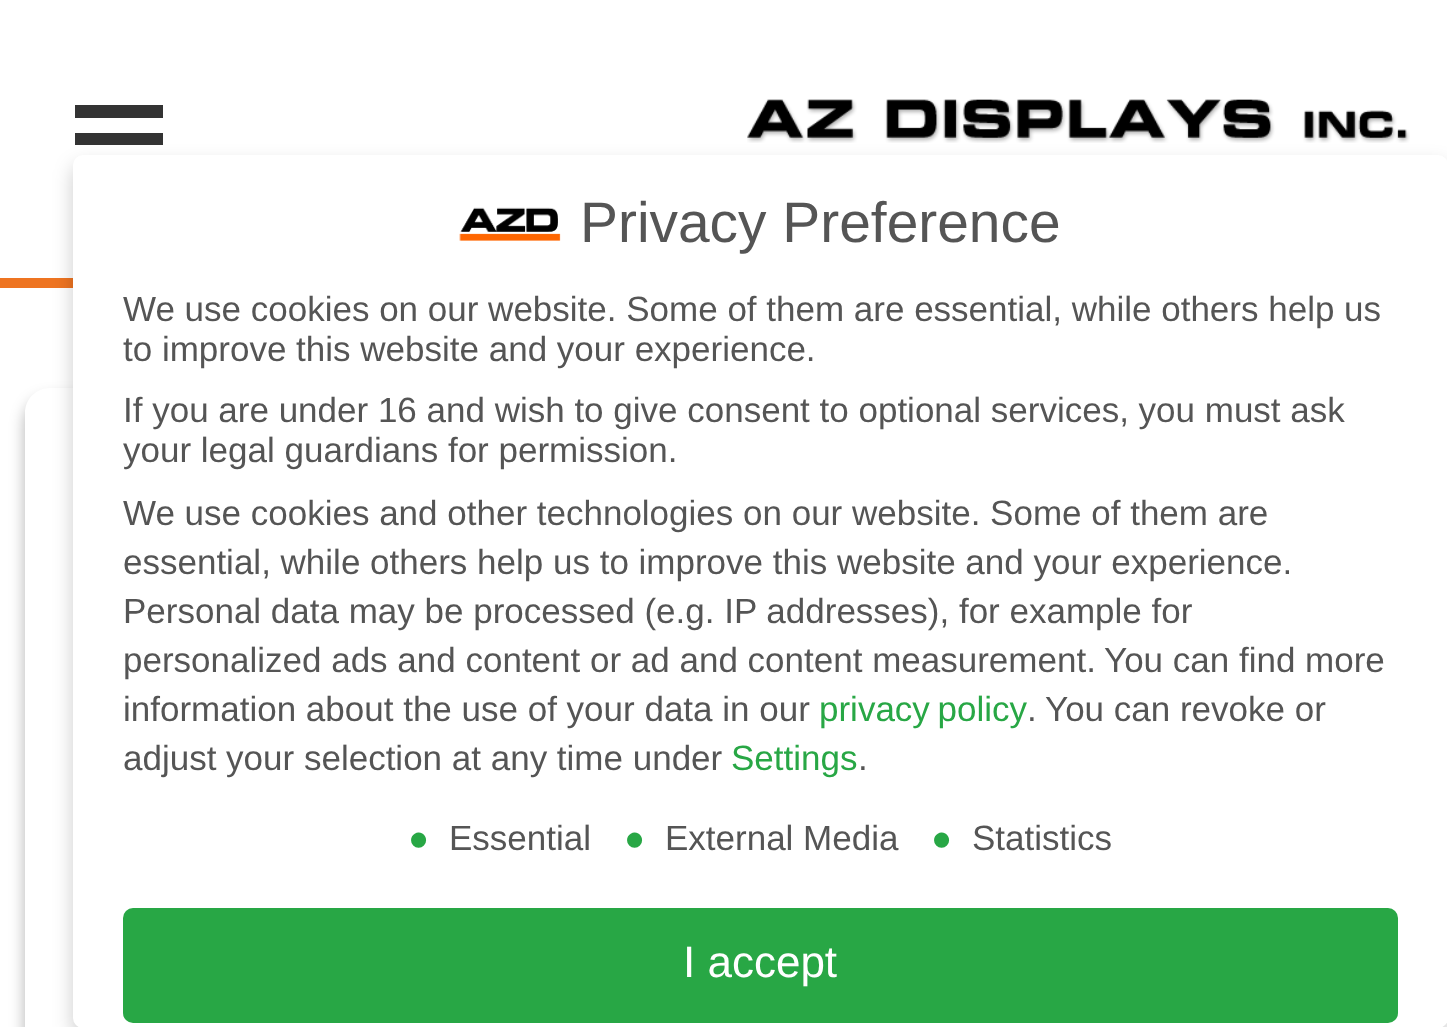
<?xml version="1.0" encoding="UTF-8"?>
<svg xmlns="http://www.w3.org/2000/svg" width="1447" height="1027">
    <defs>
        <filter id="blur1" x="-50%" y="-200%" width="200%" height="500%"><feGaussianBlur stdDeviation="10"/></filter>
        <clipPath id="clip1"><path d="M 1 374 H 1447 V 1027 H 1 Z M 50 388 H 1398 C 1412 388 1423 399 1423 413 V 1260 C 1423 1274 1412 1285 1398 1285 H 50 C 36 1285 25 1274 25 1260 V 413 C 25 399 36 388 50 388 Z" clip-rule="evenodd"/></clipPath>
        <filter id="blur2" x="-50%" y="-200%" width="200%" height="500%"><feGaussianBlur stdDeviation="7.5"/></filter>
    </defs>
    <rect width="100%" height="100%" fill="#FFFFFF"/>
    <rect x="75" y="105" width="88" height="13" fill="#333333"/>
    <rect x="75" y="133" width="88" height="12" fill="#333333"/>
    <image x="747" y="99" width="663" height="44" href="img_01.png"/>
    <rect x="0" y="278" width="73" height="10" fill="#EE7421"/>
    <rect x="73" y="165" width="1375" height="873" rx="10" fill="#000000" fill-opacity="0.2" filter="url(#blur1)"/>
    <g clip-path="url(#clip1)">
        <rect x="25" y="398" width="1398" height="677" rx="25" fill="#000000" fill-opacity="0.3" filter="url(#blur2)"/>
    </g>
    <rect x="73" y="155" width="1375" height="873" rx="10" fill="#FFFFFF"/>
    <image x="459" y="207" width="102" height="34" href="img_02.png"/>
    <text x="580" y="242" font-family="Liberation Sans" font-size="56.9" fill="#555555">Privacy Preference</text>
    <text font-family="Liberation Sans" font-size="35" fill="#555555">
        <tspan x="123" y="321">We use cookies on our website. Some of them are essential, while others help us</tspan>
        <tspan x="123" y="361">to improve this website and your experience.</tspan>
        <tspan x="123" y="422">If you are under 16 and wish to give consent to optional services, you must ask</tspan>
        <tspan x="123" y="462">your legal guardians for permission.</tspan>
        <tspan x="123" y="525">We use cookies and other technologies on our website. Some of them are</tspan>
        <tspan x="123" y="574">essential, while others help us to improve this website and your experience.</tspan>
        <tspan x="123" y="623">Personal data may be processed (e.g. IP addresses), for example for</tspan>
        <tspan x="123" y="672">personalized ads and content or ad and content measurement.</tspan>
    </text>
    <text x="1104" y="672" font-family="Liberation Sans" font-size="35" fill="#555555">You can find more</text>
    <text x="123" y="721" font-family="Liberation Sans" font-size="35" fill="#555555">information about the use of your data in our</text>
    <text x="819" y="721" word-spacing="-2" font-family="Liberation Sans" font-size="35" fill="#28A745">privacy policy</text>
    <text x="1027" y="721" font-family="Liberation Sans" font-size="35" fill="#555555">.</text>
    <text x="1045" y="721" font-family="Liberation Sans" font-size="35" fill="#555555">You can revoke or</text>
    <text x="123" y="770" font-family="Liberation Sans" font-size="35" fill="#555555">adjust your selection at any time under</text>
    <text x="731" y="770" font-family="Liberation Sans" font-size="35" fill="#28A745">Settings</text>
    <text x="858" y="770" font-family="Liberation Sans" font-size="35" fill="#555555">.</text>
    <text x="408" y="850" font-family="Liberation Sans" font-size="35" fill="#28A745">●</text>
    <text x="449" y="850" font-family="Liberation Sans" font-size="35" fill="#555555">Essential</text>
    <text x="624" y="850" font-family="Liberation Sans" font-size="35" fill="#28A745">●</text>
    <text x="665" y="850" font-family="Liberation Sans" font-size="35" fill="#555555">External Media</text>
    <text x="931" y="850" font-family="Liberation Sans" font-size="35" fill="#28A745">●</text>
    <text x="972" y="850" font-family="Liberation Sans" font-size="35" fill="#555555">Statistics</text>
    <rect x="123" y="908" width="1275" height="115" rx="10" fill="#28A745"/>
    <text x="683" y="977" font-family="Liberation Sans" font-size="44" fill="#FFFFFF">I accept</text>
</svg>
